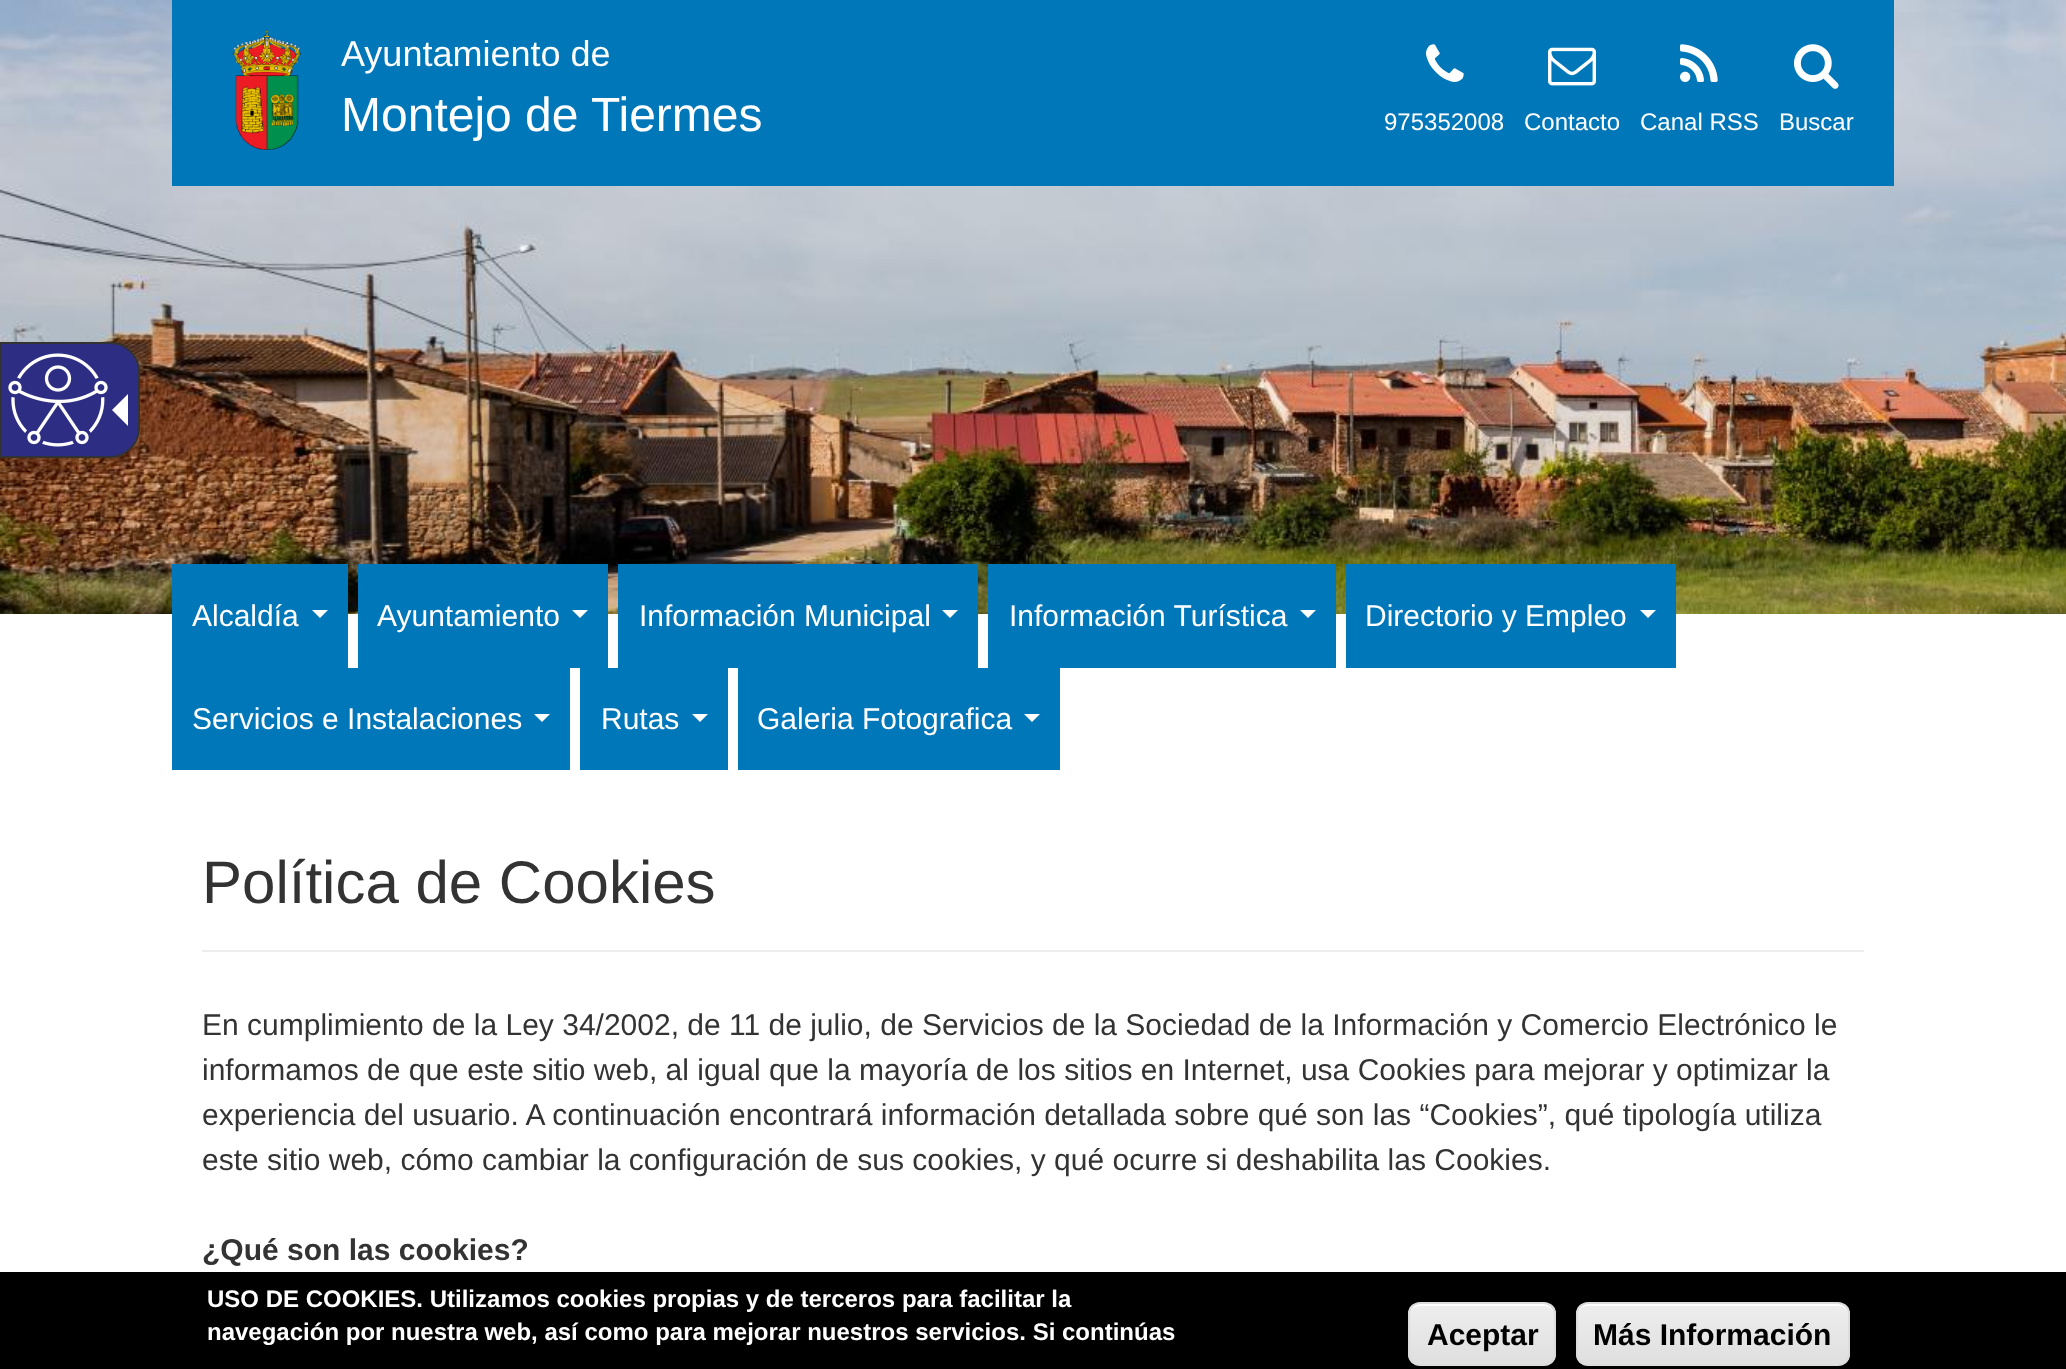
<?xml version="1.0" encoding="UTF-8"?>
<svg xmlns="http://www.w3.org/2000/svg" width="2066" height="1369">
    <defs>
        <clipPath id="clip1"><rect x="1408" y="1302" width="148" height="64" rx="12"/></clipPath>
        <linearGradient id="g1" gradientUnits="userSpaceOnUse" x1="1482" y1="1304" x2="1482" y2="1364"><stop offset="0.05" stop-color="#EDEDED"/><stop offset="1" stop-color="#DFDFDF"/></linearGradient>
        <clipPath id="clip2"><rect x="1576" y="1302" width="274" height="64" rx="12"/></clipPath>
        <linearGradient id="g2" gradientUnits="userSpaceOnUse" x1="1713" y1="1304" x2="1713" y2="1364"><stop offset="0.05" stop-color="#EDEDED"/><stop offset="1" stop-color="#DFDFDF"/></linearGradient>
    </defs>
    <rect width="100%" height="100%" fill="#FFFFFF"/>
    <image x="0" y="0" width="2066" height="614" href="img_02.png"/>
    <path d="M 1 343 H 110 C 126 343 139 356 139 372 V 428 C 139 444 126 457 110 457 H 1 Z" fill="#2D2E83" stroke="#333333" stroke-width="2"/>
    <image x="8" y="353" width="100" height="94" href="img_01.png"/>
    <path d="M 128 394 V 426 L 112 410 Z" fill="#FFFFFF"/>
    <rect x="172" y="0" width="1722" height="186" fill="#0077B9"/>
    <image x="232" y="30" width="70" height="120" href="img_03.png"/>
    <text x="341" y="66" font-family="Liberation Sans" font-size="36" fill="#FFFFFF">Ayuntamiento de</text>
    <text x="341" y="131" font-family="Liberation Sans" font-size="48" fill="#FFFFFF">Montejo de Tiermes</text>
    <image x="1426" y="44" width="38" height="38" href="img_04.png"/>
    <text x="1384" y="130" font-family="Liberation Sans" font-size="24" fill="#FFFFFF">975352008</text>
    <image x="1548" y="47" width="48" height="39" href="img_05.png"/>
    <text x="1524" y="130" font-family="Liberation Sans" font-size="24" fill="#FFFFFF">Contacto</text>
    <image x="1680" y="44" width="38" height="38" href="img_06.png"/>
    <text x="1640" y="130" font-family="Liberation Sans" font-size="24" fill="#FFFFFF">Canal RSS</text>
    <image x="1794" y="44" width="45" height="45" href="img_07.png"/>
    <text x="1779" y="130" font-family="Liberation Sans" font-size="24" fill="#FFFFFF">Buscar</text>
    <rect x="172" y="564" width="176" height="104" fill="#0077B9"/>
    <text x="192" y="626" font-family="Liberation Sans" font-size="30" fill="#FFFFFF">Alcaldía</text>
    <path d="M 312 610 H 328 L 320 618 Z" fill="#FFFFFF"/>
    <rect x="358" y="564" width="250" height="104" fill="#0077B9"/>
    <text x="377" y="626" font-family="Liberation Sans" font-size="30" fill="#FFFFFF">Ayuntamiento</text>
    <path d="M 572 610 H 588 L 580 618 Z" fill="#FFFFFF"/>
    <rect x="618" y="564" width="360" height="104" fill="#0077B9"/>
    <text x="639" y="626" font-family="Liberation Sans" font-size="30" fill="#FFFFFF">Información Municipal</text>
    <path d="M 942 610 H 958 L 950 618 Z" fill="#FFFFFF"/>
    <rect x="988" y="564" width="348" height="104" fill="#0077B9"/>
    <text x="1009" y="626" font-family="Liberation Sans" font-size="30" fill="#FFFFFF">Información Turística</text>
    <path d="M 1300 610 H 1316 L 1308 618 Z" fill="#FFFFFF"/>
    <rect x="1346" y="564" width="330" height="104" fill="#0077B9"/>
    <text x="1365" y="626" font-family="Liberation Sans" font-size="30" fill="#FFFFFF">Directorio y Empleo</text>
    <path d="M 1640 610 H 1656 L 1648 618 Z" fill="#FFFFFF"/>
    <rect x="172" y="668" width="398" height="102" fill="#0077B9"/>
    <text x="192" y="729" font-family="Liberation Sans" font-size="30" fill="#FFFFFF">Servicios e Instalaciones</text>
    <path d="M 534 714 H 550 L 542 722 Z" fill="#FFFFFF"/>
    <rect x="580" y="668" width="148" height="102" fill="#0077B9"/>
    <text x="601" y="729" font-family="Liberation Sans" font-size="30" fill="#FFFFFF">Rutas</text>
    <path d="M 692 714 H 708 L 700 722 Z" fill="#FFFFFF"/>
    <rect x="738" y="668" width="322" height="102" fill="#0077B9"/>
    <text x="757" y="729" font-family="Liberation Sans" font-size="30" fill="#FFFFFF">Galeria Fotografica</text>
    <path d="M 1024 714 H 1040 L 1032 722 Z" fill="#FFFFFF"/>
    <rect x="202" y="950" width="1662" height="2" fill="#EEEEEE"/>
    <text x="202" y="903" font-family="Liberation Sans" font-size="60" fill="#333333">Política de Cookies</text>
    <text font-family="Liberation Sans" font-size="30" fill="#333333">
        <tspan x="202" y="1035">En cumplimiento de la Ley 34/2002, de 11 de julio, de Servicios de la Sociedad de la Información y Comercio Electrónico le</tspan>
        <tspan x="202" y="1080">informamos de que este sitio web, al igual que la mayoría de los sitios en Internet, usa Cookies para mejorar y optimizar la</tspan>
        <tspan x="202" y="1125">experiencia del usuario. A continuación encontrará información detallada sobre qué son las “Cookies”, qué tipología utiliza</tspan>
        <tspan x="202" y="1170">este sitio web, cómo cambiar la configuración de sus cookies, y qué ocurre si deshabilita las Cookies.</tspan>
    </text>
    <text x="202" y="1260" font-family="Liberation Sans" font-size="30" font-weight="700" fill="#333333">¿Qué son las cookies?</text>
    <rect x="0" y="1272" width="2066" height="97" fill="#000000"/>
    <text font-family="Liberation Sans" font-size="24" font-weight="700" fill="#FFFFFF">
        <tspan x="207" y="1307">USO DE COOKIES. Utilizamos cookies propias y de terceros para facilitar la</tspan>
        <tspan x="207" y="1340">navegación por nuestra web, así como para mejorar nuestros servicios. Si continúas</tspan>
    </text>
    <g clip-path="url(#clip1)">
        <rect x="1408" y="1304" width="148" height="60" fill="url(#g1)"/>
    </g>
    <path d="M 1420 1306 H 1544 C 1550 1306 1554 1310 1554 1316 C 1554 1299 1535 1304 1523 1304 H 1441 C 1429 1304 1410 1299 1410 1316 C 1410 1310 1414 1306 1420 1306 Z" fill="#FFFFFF"/>
    <rect x="1409" y="1303" width="146" height="62" rx="11" fill="none" stroke="#DCDCDC" stroke-width="2"/>
    <text x="1427" y="1345" font-family="Liberation Sans" font-size="30" font-weight="700" fill="#000000">Aceptar</text>
    <g clip-path="url(#clip2)">
        <rect x="1576" y="1304" width="274" height="60" fill="url(#g2)"/>
    </g>
    <path d="M 1588 1306 H 1838 C 1844 1306 1848 1310 1848 1316 V 1314 C 1848 1308 1844 1304 1838 1304 H 1588 C 1582 1304 1578 1308 1578 1314 V 1316 C 1578 1310 1582 1306 1588 1306 Z" fill="#FFFFFF"/>
    <rect x="1577" y="1303" width="272" height="62" rx="11" fill="none" stroke="#DCDCDC" stroke-width="2"/>
    <text x="1593" y="1345" font-family="Liberation Sans" font-size="30" font-weight="700" fill="#000000">Más Información</text>
</svg>
